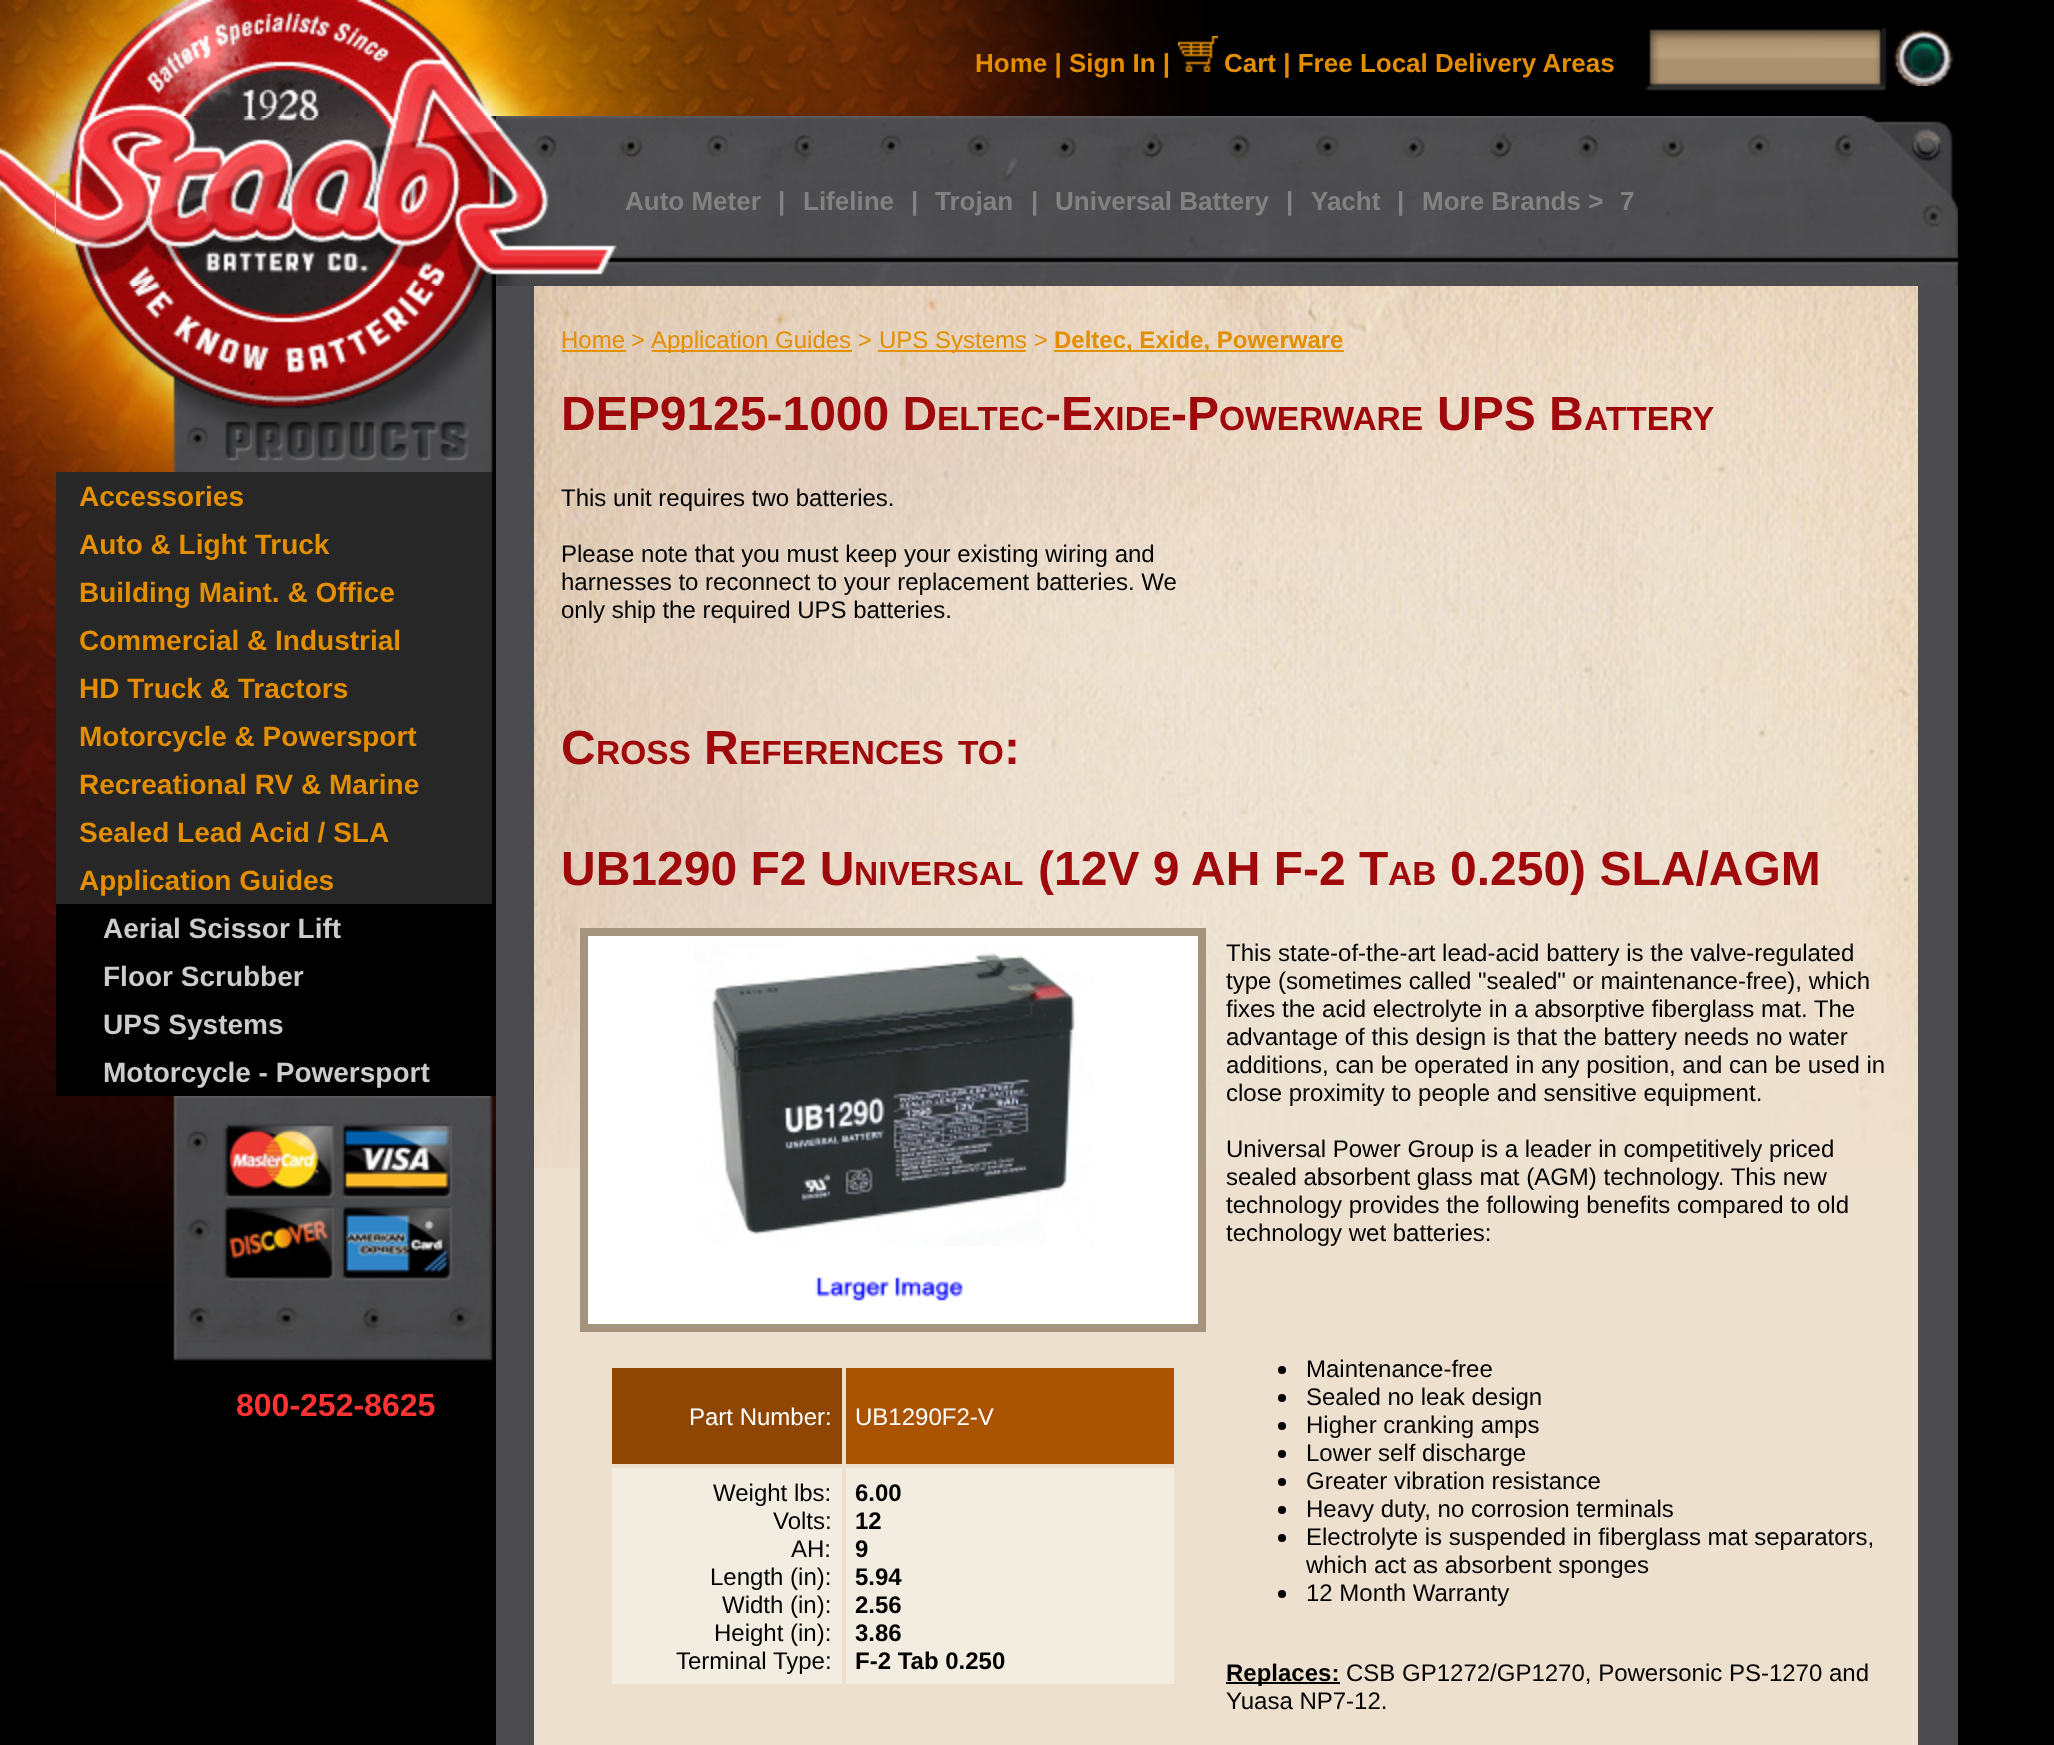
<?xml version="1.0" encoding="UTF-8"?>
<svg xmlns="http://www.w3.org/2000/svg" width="2054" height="1745">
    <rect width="100%" height="100%" fill="#000000"/>
    <image x="0" y="0" width="1206" height="1285" href="img_01.png"/>
    <image x="60" y="0" width="436" height="116" href="img_02.png"/>
    <text x="975" y="72" font-family="Liberation Sans" font-size="26" font-weight="700" fill="#E38E01">Home | Sign In |</text>
    <image x="1178" y="36" width="40" height="36" href="img_03.png"/>
    <text x="1224" y="72" font-family="Liberation Sans" font-size="26" font-weight="700" fill="#E38E01">Cart | Free Local Delivery Areas</text>
    <image x="1645" y="27" width="242" height="64" href="img_04.png"/>
    <image x="1894" y="29" width="60" height="57" href="img_05.png"/>
    <image x="56" y="116" width="440" height="170" href="img_06.png"/>
    <image x="496" y="116" width="1462" height="170" href="img_07.png"/>
    <text x="625" y="210" font-family="Liberation Sans" font-size="26" font-weight="700" fill="#828282">Auto Meter</text>
    <text x="778" y="210" font-family="Liberation Sans" font-size="26" font-weight="700" fill="#828282">|</text>
    <text x="803" y="210" font-family="Liberation Sans" font-size="26" font-weight="700" fill="#828282">Lifeline</text>
    <text x="911" y="210" font-family="Liberation Sans" font-size="26" font-weight="700" fill="#828282">|</text>
    <text x="935" y="210" font-family="Liberation Sans" font-size="26" font-weight="700" fill="#828282">Trojan</text>
    <text x="1031" y="210" font-family="Liberation Sans" font-size="26" font-weight="700" fill="#828282">|</text>
    <text x="1055" y="210" font-family="Liberation Sans" font-size="26" font-weight="700" fill="#828282">Universal Battery</text>
    <text x="1286" y="210" font-family="Liberation Sans" font-size="26" font-weight="700" fill="#828282">|</text>
    <text x="1311" y="210" font-family="Liberation Sans" font-size="26" font-weight="700" fill="#828282">Yacht</text>
    <text x="1397" y="210" font-family="Liberation Sans" font-size="26" font-weight="700" fill="#828282">|</text>
    <text x="1422" y="210" font-family="Liberation Sans" font-size="26" font-weight="700" fill="#828282">More Brands &gt;</text>
    <text x="1620" y="210" font-family="Liberation Sans" font-size="26" font-weight="700" fill="#828282">7</text>
    <image x="89" y="286" width="407" height="186" href="img_08.png"/>
    <rect x="56" y="472" width="436" height="432" fill="#272727"/>
    <rect x="492" y="472" width="4" height="624" fill="#000000"/>
    <text font-family="Liberation Sans" font-size="28" font-weight="700" fill="#E38E01">
        <tspan x="79" y="506">Accessories</tspan>
        <tspan x="79" y="554">Auto &amp; Light Truck</tspan>
        <tspan x="79" y="602">Building Maint. &amp; Office</tspan>
        <tspan x="79" y="650">Commercial &amp; Industrial</tspan>
        <tspan x="79" y="698">HD Truck &amp; Tractors</tspan>
        <tspan x="79" y="746">Motorcycle &amp; Powersport</tspan>
        <tspan x="79" y="794">Recreational RV &amp; Marine</tspan>
        <tspan x="79" y="842">Sealed Lead Acid / SLA</tspan>
        <tspan x="79" y="890">Application Guides</tspan>
    </text>
    <rect x="56" y="904" width="436" height="192" fill="#000000"/>
    <text font-family="Liberation Sans" font-size="28" font-weight="700" fill="#CCCCCC">
        <tspan x="103" y="938">Aerial Scissor Lift</tspan>
        <tspan x="103" y="986">Floor Scrubber</tspan>
        <tspan x="103" y="1034">UPS Systems</tspan>
        <tspan x="103" y="1082">Motorcycle - Powersport</tspan>
    </text>
    <image x="173" y="1096" width="323" height="265" href="img_09.png"/>
    <text x="236" y="1416" font-family="Liberation Sans" font-size="32" font-weight="700" fill="#FF3333">800-252-8625</text>
    <rect x="534" y="1168" width="1384" height="577" fill="#EEE0CE"/>
    <image x="534" y="286" width="1384" height="882" href="img_10.png"/>
    <rect x="1918" y="286" width="40" height="1459" fill="#4C4C4E"/>
    <rect x="496" y="286" width="38" height="1459" fill="#4C4C4E"/>
    <text x="561" y="348" font-family="Liberation Sans" font-size="24" fill="#E38E01">Home</text>
    <rect x="562" y="350" width="64" height="2" fill="#E59201"/>
    <text x="631" y="348" font-family="Liberation Sans" font-size="24" fill="#E38E01">&gt;</text>
    <rect x="652" y="350" width="200" height="2" fill="#E59201"/>
    <text x="651" y="348" font-family="Liberation Sans" font-size="24" fill="#E38E01">Application Guides &gt;</text>
    <rect x="878" y="350" width="148" height="2" fill="#E59201"/>
    <text x="879" y="348" font-family="Liberation Sans" font-size="24" fill="#E38E01">UPS Systems &gt;</text>
    <rect x="1054" y="350" width="290" height="2" fill="#E59201"/>
    <text x="1054" y="348" font-family="Liberation Sans" font-size="24" font-weight="700" fill="#E38E01">Deltec, Exide, Powerware</text>
    <text x="561" y="430" font-family="Liberation Sans" font-size="48" font-weight="700" fill="#9F090B">DEP9125-1000 D</text>
    <text x="937" y="430" font-family="Liberation Sans" font-size="33.5" font-weight="700" fill="#9F090B">ELTEC</text>
    <text x="1045" y="430" font-family="Liberation Sans" font-size="48" font-weight="700" fill="#9F090B">-E</text>
    <text x="1093" y="430" font-family="Liberation Sans" font-size="33.5" font-weight="700" fill="#9F090B">XIDE</text>
    <text x="1171" y="430" font-family="Liberation Sans" font-size="48" font-weight="700" fill="#9F090B">-P</text>
    <text x="1219" y="430" font-family="Liberation Sans" font-size="33.5" font-weight="700" fill="#9F090B">OWERWARE</text>
    <text x="1437" y="430" font-family="Liberation Sans" font-size="48" font-weight="700" fill="#9F090B">UPS B</text>
    <text x="1584" y="430" font-family="Liberation Sans" font-size="33.5" font-weight="700" fill="#9F090B">ATTERY</text>
    <text x="561" y="506" font-family="Liberation Sans" font-size="24" fill="#000000">This unit requires two batteries.</text>
    <text font-family="Liberation Sans" font-size="24" fill="#000000">
        <tspan x="561" y="562">Please note that you must keep your existing wiring and</tspan>
        <tspan x="561" y="590">harnesses to reconnect to your replacement batteries. We</tspan>
        <tspan x="561" y="618">only ship the required UPS batteries.</tspan>
    </text>
    <text x="561" y="764" font-family="Liberation Sans" font-size="48" font-weight="700" fill="#9F090B">C</text>
    <text x="596" y="764" font-family="Liberation Sans" font-size="33.5" font-weight="700" fill="#9F090B">ROSS</text>
    <text x="704" y="764" font-family="Liberation Sans" font-size="48" font-weight="700" fill="#9F090B">R</text>
    <text x="739" y="764" font-family="Liberation Sans" font-size="33.5" font-weight="700" fill="#9F090B">EFERENCES</text>
    <text x="958" y="764" font-family="Liberation Sans" font-size="33.5" font-weight="700" fill="#9F090B">TO</text>
    <text x="1004" y="764" font-family="Liberation Sans" font-size="48" font-weight="700" fill="#9F090B">:</text>
    <text x="561" y="885" font-family="Liberation Sans" font-size="48" font-weight="700" fill="#9F090B">UB1290 F2 U</text>
    <text x="854" y="885" font-family="Liberation Sans" font-size="33.5" font-weight="700" fill="#9F090B">NIVERSAL</text>
    <text x="1038" y="885" font-family="Liberation Sans" font-size="48" font-weight="700" fill="#9F090B">(12V 9 AH F-2 T</text>
    <text x="1388" y="885" font-family="Liberation Sans" font-size="33.5" font-weight="700" fill="#9F090B">AB</text>
    <text x="1450" y="885" font-family="Liberation Sans" font-size="48" font-weight="700" fill="#9F090B">0.250) SLA/AGM</text>
    <rect x="584" y="932" width="618" height="396" fill="#FFFFFF" stroke="#A4937F" stroke-width="8"/>
    <image x="694" y="942" width="400" height="304" href="img_11.png"/>
    <image x="815" y="1277" width="148" height="24" href="img_12.png"/>
    <rect x="612" y="1368" width="230" height="96" fill="#8F4603"/>
    <text x="689" y="1425" font-family="Liberation Sans" font-size="24" fill="#FFFFFF">Part Number:</text>
    <rect x="846" y="1368" width="328" height="96" fill="#A95303"/>
    <text x="855" y="1425" font-family="Liberation Sans" font-size="24" fill="#FFFFFF">UB1290F2-V</text>
    <rect x="612" y="1468" width="230" height="216" fill="#F3ECE0"/>
    <text x="713" y="1501" font-family="Liberation Sans" font-size="24" fill="#000000">Weight lbs:</text>
    <text x="773" y="1529" font-family="Liberation Sans" font-size="24" fill="#000000">Volts:</text>
    <text x="791" y="1557" font-family="Liberation Sans" font-size="24" fill="#000000">AH:</text>
    <text x="710" y="1585" font-family="Liberation Sans" font-size="24" fill="#000000">Length (in):</text>
    <text x="722" y="1613" font-family="Liberation Sans" font-size="24" fill="#000000">Width (in):</text>
    <text x="714" y="1641" font-family="Liberation Sans" font-size="24" fill="#000000">Height (in):</text>
    <text x="676" y="1669" font-family="Liberation Sans" font-size="24" fill="#000000">Terminal Type:</text>
    <rect x="846" y="1468" width="328" height="216" fill="#F3ECE0"/>
    <text font-family="Liberation Sans" font-size="24" font-weight="700" fill="#000000">
        <tspan x="855" y="1501">6.00</tspan>
        <tspan x="855" y="1529">12</tspan>
        <tspan x="855" y="1557">9</tspan>
        <tspan x="855" y="1585">5.94</tspan>
        <tspan x="855" y="1613">2.56</tspan>
        <tspan x="855" y="1641">3.86</tspan>
        <tspan x="855" y="1669">F-2 Tab 0.250</tspan>
    </text>
    <text font-family="Liberation Sans" font-size="24" fill="#000000">
        <tspan x="1226" y="961">This state-of-the-art lead-acid battery is the valve-regulated</tspan>
        <tspan x="1226" y="989">type (sometimes called "sealed" or maintenance-free), which</tspan>
        <tspan x="1226" y="1017">fixes the acid electrolyte in a absorptive fiberglass mat. The</tspan>
        <tspan x="1226" y="1045">advantage of this design is that the battery needs no water</tspan>
        <tspan x="1226" y="1073">additions, can be operated in any position, and can be used in</tspan>
        <tspan x="1226" y="1101">close proximity to people and sensitive equipment.</tspan>
    </text>
    <text font-family="Liberation Sans" font-size="24" fill="#000000">
        <tspan x="1226" y="1157">Universal Power Group is a leader in competitively priced</tspan>
        <tspan x="1226" y="1185">sealed absorbent glass mat (AGM) technology. This new</tspan>
        <tspan x="1226" y="1213">technology provides the following benefits compared to old</tspan>
        <tspan x="1226" y="1241">technology wet batteries:</tspan>
    </text>
    <circle cx="1282" cy="1370" r="4" fill="#000000"/>
    <text x="1306" y="1377" font-family="Liberation Sans" font-size="24" fill="#000000">Maintenance-free</text>
    <circle cx="1282" cy="1398" r="4" fill="#000000"/>
    <text x="1306" y="1405" font-family="Liberation Sans" font-size="24" fill="#000000">Sealed no leak design</text>
    <circle cx="1282" cy="1426" r="4" fill="#000000"/>
    <text x="1306" y="1433" font-family="Liberation Sans" font-size="24" fill="#000000">Higher cranking amps</text>
    <circle cx="1282" cy="1454" r="4" fill="#000000"/>
    <text x="1306" y="1461" font-family="Liberation Sans" font-size="24" fill="#000000">Lower self discharge</text>
    <circle cx="1282" cy="1482" r="4" fill="#000000"/>
    <text x="1306" y="1489" font-family="Liberation Sans" font-size="24" fill="#000000">Greater vibration resistance</text>
    <circle cx="1282" cy="1510" r="4" fill="#000000"/>
    <text x="1306" y="1517" font-family="Liberation Sans" font-size="24" fill="#000000">Heavy duty, no corrosion terminals</text>
    <circle cx="1282" cy="1538" r="4" fill="#000000"/>
    <text font-family="Liberation Sans" font-size="24" fill="#000000">
        <tspan x="1306" y="1545">Electrolyte is suspended in fiberglass mat separators,</tspan>
        <tspan x="1306" y="1573">which act as absorbent sponges</tspan>
    </text>
    <circle cx="1282" cy="1594" r="4" fill="#000000"/>
    <text x="1306" y="1601" font-family="Liberation Sans" font-size="24" fill="#000000">12 Month Warranty</text>
    <rect x="1226" y="1682" width="114" height="2" fill="#000000"/>
    <text x="1226" y="1681" font-family="Liberation Sans" font-size="24" font-weight="700" fill="#000000">Replaces:</text>
    <text x="1346" y="1681" font-family="Liberation Sans" font-size="24" fill="#000000">CSB GP1272/GP1270, Powersonic PS-1270 and</text>
    <text x="1226" y="1709" font-family="Liberation Sans" font-size="24" fill="#000000">Yuasa NP7-12.</text>
</svg>
